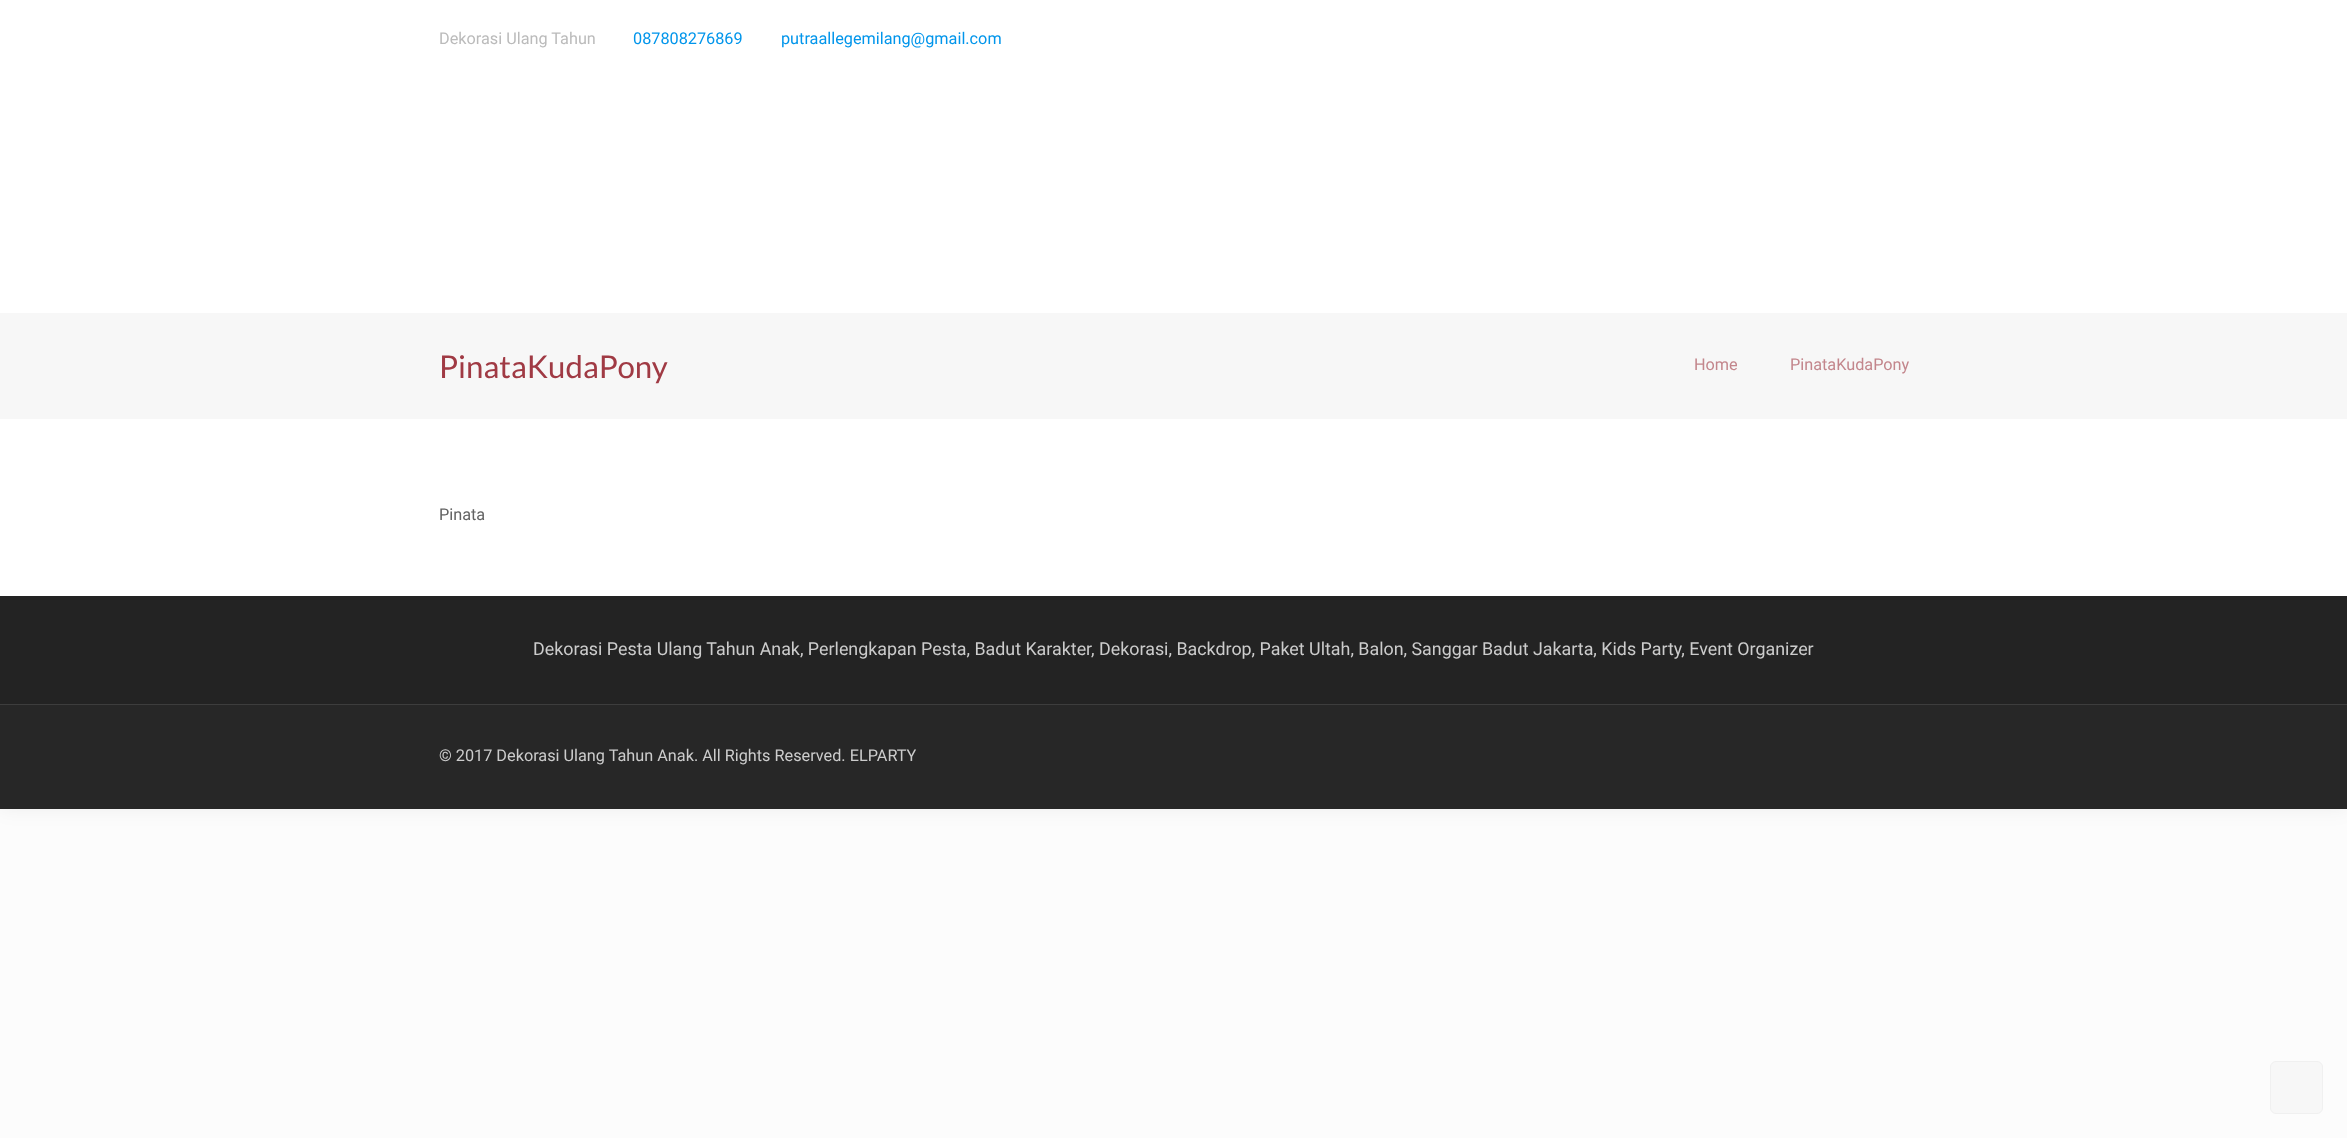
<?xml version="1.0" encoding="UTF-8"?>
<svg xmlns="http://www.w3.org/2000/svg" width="2347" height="1138">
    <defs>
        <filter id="blur1" x="-50%" y="-200%" width="200%" height="500%"><feGaussianBlur stdDeviation="9.5"/></filter>
    </defs>
    <rect width="100%" height="100%" fill="#FCFCFC"/>
    <rect x="0" y="0" width="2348" height="809" fill="#000000" fill-opacity="0.06" filter="url(#blur1)"/>
    <rect x="0" y="0" width="2347" height="596" fill="#FFFFFF"/>
    <text x="439" y="44" font-family="Roboto" font-size="16.25" fill="#BBBBBB">Dekorasi Ulang Tahun</text>
    <text x="633" y="44" font-family="Roboto" font-size="16.25" fill="#0095EB">087808276869</text>
    <text x="781" y="44" font-family="Roboto" font-size="16.25" fill="#0095EB">putraallegemilang@gmail.com</text>
    <rect x="0" y="313" width="2347" height="106" fill="#F7F7F7"/>
    <text x="439" y="378" font-family="Lato" font-size="31.25" fill="#A03A44">PinataKudaPony</text>
    <text x="1694" y="370" font-family="Roboto" font-size="16.25" fill="#C3868C">Home</text>
    <text x="1790" y="370" font-family="Roboto" font-size="16.25" fill="#C3868C">PinataKudaPony</text>
    <text x="439" y="520" font-family="Roboto" font-size="16.25" fill="#626262">Pinata</text>
    <rect x="0" y="705" width="2347" height="104" fill="#272727"/>
    <rect x="0" y="596" width="2347" height="108" fill="#232323"/>
    <text x="533" y="655" font-family="Roboto" font-size="17.88" fill="#CCCCCC">Dekorasi Pesta Ulang Tahun Anak, Perlengkapan Pesta, Badut Karakter, Dekorasi, Backdrop, Paket Ultah, Balon, Sanggar Badut Jakarta, Kids Party, Event Organizer</text>
    <rect x="0" y="704" width="2347" height="1" fill="#3D3D3D"/>
    <text x="439" y="761" font-family="Roboto" font-size="16.25" fill="#CCCCCC">© 2017 Dekorasi Ulang Tahun Anak. All Rights Reserved. ELPARTY</text>
    <rect x="2270.5" y="1061.5" width="52" height="52" rx="5.5" fill="#F7F7F7" stroke="#F0F0F0"/>
</svg>
